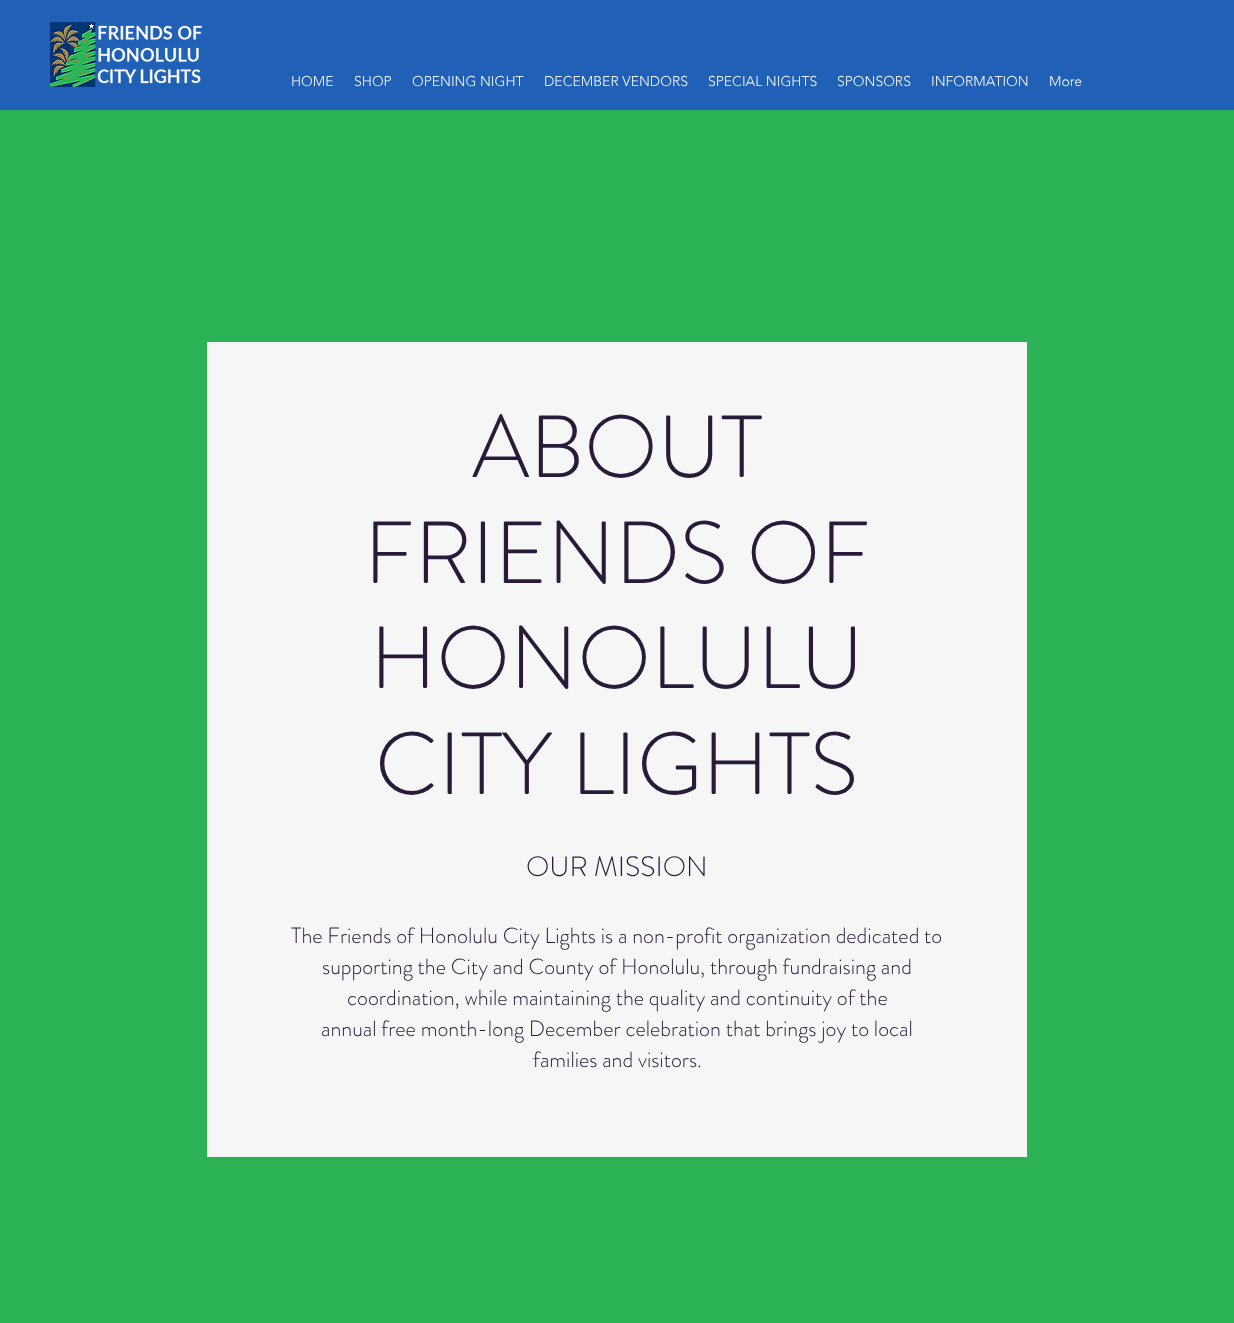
<?xml version="1.0" encoding="UTF-8"?>
<svg xmlns="http://www.w3.org/2000/svg" width="1234" height="1323">
    <rect width="100%" height="100%" fill="#2BB254"/>
    <rect x="0" y="0" width="1234" height="110" fill="#2061B7"/>
    <image x="50" y="22" width="152" height="65" href="img_01.png"/>
    <text x="291" y="86" font-family="'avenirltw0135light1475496'" font-size="14" font-weight="300" fill="#F6F6F6">HOME</text>
    <text x="354" y="86" font-family="'avenirltw0135light1475496'" font-size="14" font-weight="300" fill="#F6F6F6">SHOP</text>
    <text x="412" y="86" font-family="'avenirltw0135light1475496'" font-size="14" font-weight="300" fill="#F6F6F6">OPENING NIGHT</text>
    <text x="544" y="86" font-family="'avenirltw0135light1475496'" font-size="14" font-weight="300" fill="#F6F6F6">DECEMBER VENDORS</text>
    <text x="708" y="86" font-family="'avenirltw0135light1475496'" font-size="14" font-weight="300" fill="#F6F6F6">SPECIAL NIGHTS</text>
    <text x="837" y="86" font-family="'avenirltw0135light1475496'" font-size="14" font-weight="300" fill="#F6F6F6">SPONSORS</text>
    <text x="931" y="86" font-family="'avenirltw0135light1475496'" font-size="14" font-weight="300" fill="#F6F6F6">INFORMATION</text>
    <text x="1049" y="86" font-family="'avenirltw0135light1475496'" font-size="14" font-weight="300" fill="#F6F6F6">More</text>
    <rect x="207" y="342" width="820" height="815" fill="#F6F6F6"/>
    <text x="472" y="477" font-family="'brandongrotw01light'" font-size="88" font-weight="300" fill="#281A39">ABOUT</text>
    <text x="364" y="583" font-family="'brandongrotw01light'" font-size="88" font-weight="300" fill="#281A39">FRIENDS OF</text>
    <text x="370" y="688" font-family="'brandongrotw01light'" font-size="88" font-weight="300" fill="#281A39">HONOLULU</text>
    <text x="375" y="794" font-family="'brandongrotw01light'" font-size="88" font-weight="300" fill="#281A39">CITY LIGHTS</text>
    <text x="526" y="876" font-family="'brandongrotw01light'" font-size="28" font-weight="300" fill="#281A39">OUR MISSION</text>
    <text x="291" y="943" font-family="'brandongrotw01light'" font-size="22" font-weight="300" fill="#281A39">The Friends of Honolulu City Lights is a non-profit organization dedicated to</text>
    <text x="322" y="974" font-family="'brandongrotw01light'" font-size="22" font-weight="300" fill="#281A39">supporting the City and County of Honolulu, through fundraising and</text>
    <text x="347" y="1005" font-family="'brandongrotw01light'" font-size="22" font-weight="300" fill="#281A39">coordination, while maintaining the quality and continuity of the</text>
    <text x="321" y="1036" font-family="'brandongrotw01light'" font-size="22" font-weight="300" fill="#281A39">annual free month-long December celebration that brings joy to local</text>
    <text x="533" y="1067" font-family="'brandongrotw01light'" font-size="22" font-weight="300" fill="#281A39">families and visitors.</text>
</svg>
